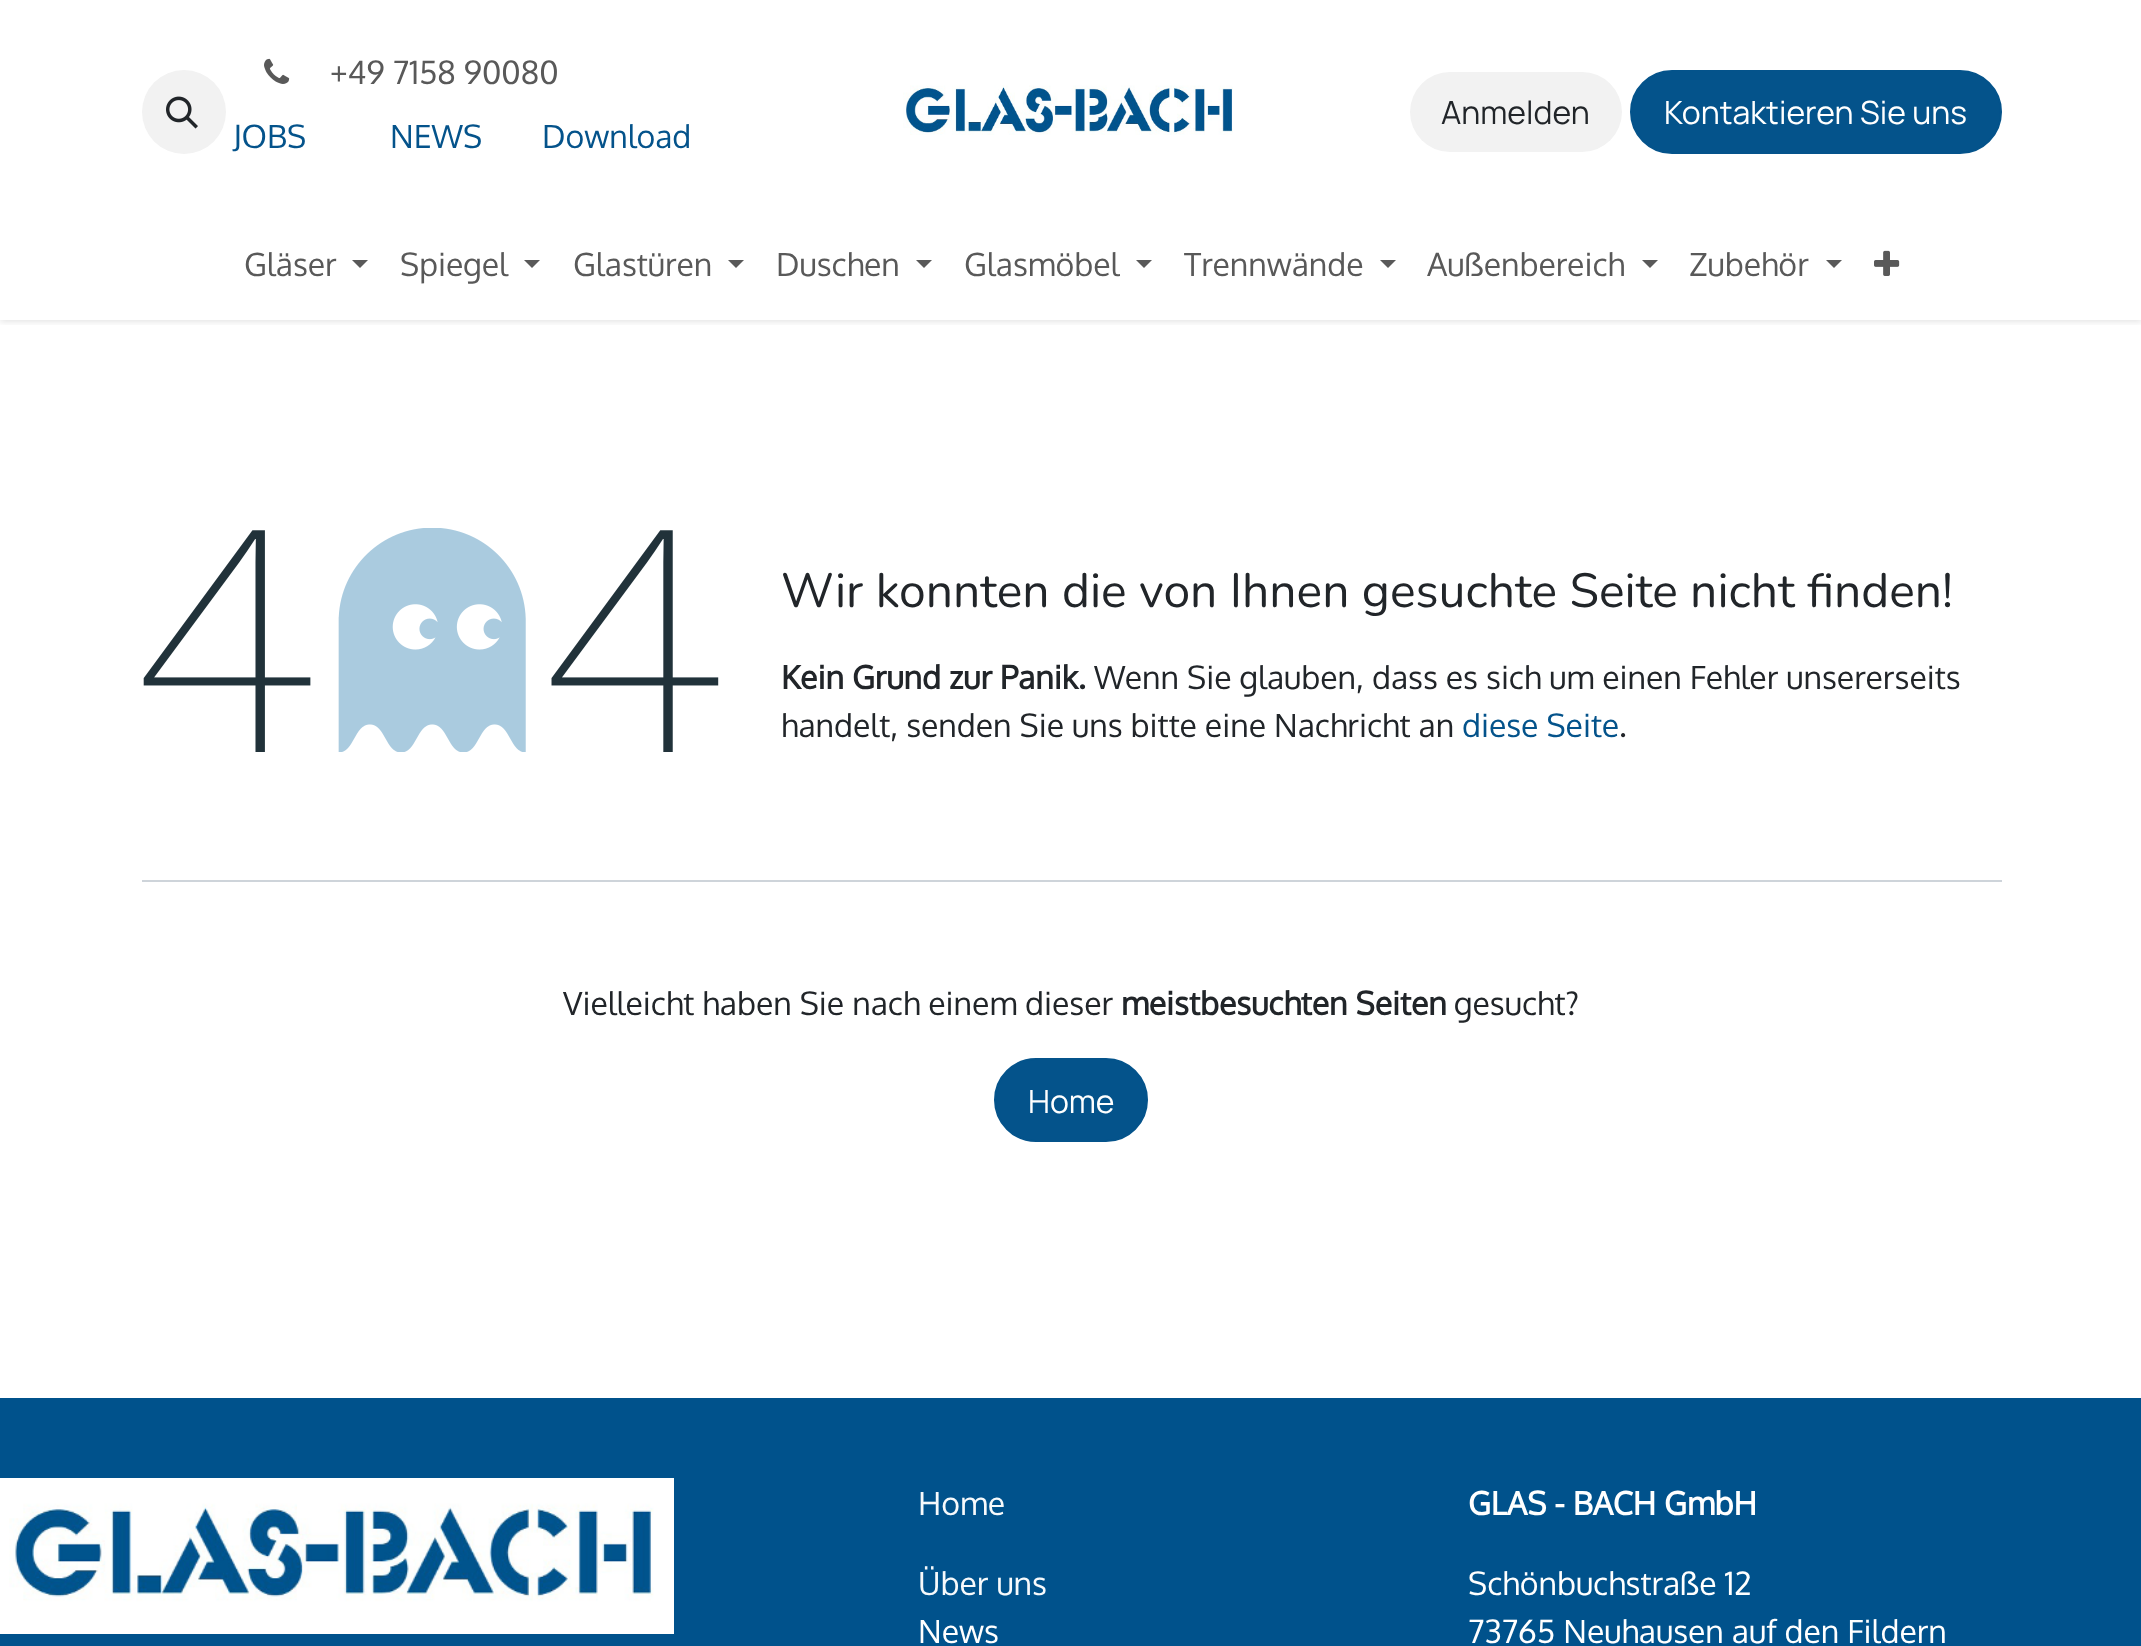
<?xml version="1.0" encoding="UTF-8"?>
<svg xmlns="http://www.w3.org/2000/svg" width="2141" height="1646">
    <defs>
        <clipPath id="clip1"><rect x="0" y="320" width="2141" height="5"/></clipPath>
        <filter id="blur1" x="-50%" y="-200%" width="200%" height="500%"><feGaussianBlur stdDeviation="3"/></filter>
    </defs>
    <rect width="100%" height="100%" fill="#FFFFFF"/>
    <g clip-path="url(#clip1)">
        <rect x="0" y="2" width="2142" height="320" fill="#000000" fill-opacity="0.1" filter="url(#blur1)"/>
    </g>
    <circle cx="184" cy="112" r="42" fill="#F2F2F2"/>
    <image x="166" y="96" width="32" height="33" href="img_01.png"/>
    <image x="264" y="58" width="26" height="26" href="img_02.png"/>
    <text x="330" y="84" font-family="Oxygen" font-size="32" fill="#595959">+49 7158 90080</text>
    <text x="233" y="148" font-family="Oxygen" font-size="32" fill="#04538B">JOBS</text>
    <text x="390" y="148" font-family="Oxygen" font-size="32" fill="#04538B">NEWS</text>
    <text x="542" y="148" font-family="Oxygen" font-size="32" fill="#04538B">Download</text>
    <image x="903" y="85" width="330" height="50" href="img_03.png"/>
    <rect x="1410" y="72" width="212" height="80" rx="40" fill="#F2F2F2"/>
    <text x="1441" y="124" font-family="Manrope" font-size="32" fill="#212529">Anmelden</text>
    <rect x="1631" y="71" width="370" height="82" rx="41" fill="#04538B" stroke="#04538B" stroke-width="2"/>
    <text x="1664" y="124" font-family="Manrope" font-size="32" fill="#FFFFFF">Kontaktieren Sie uns</text>
    <text x="244" y="276" font-family="Oxygen" font-size="32" fill="#595959">Gläser</text>
    <path d="M 352 260 H 368 L 360 268 Z" fill="#595959"/>
    <text x="400" y="276" font-family="Oxygen" font-size="32" fill="#595959">Spiegel</text>
    <path d="M 524 260 H 540 L 532 268 Z" fill="#595959"/>
    <text x="573" y="276" font-family="Oxygen" font-size="32" fill="#595959">Glastüren</text>
    <path d="M 728 260 H 744 L 736 268 Z" fill="#595959"/>
    <text x="776" y="276" font-family="Oxygen" font-size="32" fill="#595959">Duschen</text>
    <path d="M 916 260 H 932 L 924 268 Z" fill="#595959"/>
    <text x="964" y="276" font-family="Oxygen" font-size="32" fill="#595959">Glasmöbel</text>
    <path d="M 1136 260 H 1152 L 1144 268 Z" fill="#595959"/>
    <text x="1184" y="276" font-family="Oxygen" font-size="32" fill="#595959">Trennwände</text>
    <path d="M 1380 260 H 1396 L 1388 268 Z" fill="#595959"/>
    <text x="1427" y="276" font-family="Oxygen" font-size="32" fill="#595959">Außenbereich</text>
    <path d="M 1642 260 H 1658 L 1650 268 Z" fill="#595959"/>
    <text x="1689" y="276" font-family="Oxygen" font-size="32" fill="#595959">Zubehör</text>
    <path d="M 1826 260 H 1842 L 1834 268 Z" fill="#595959"/>
    <image x="1874" y="250" width="26" height="26" href="img_04.png"/>
    <image x="143" y="528" width="576" height="224" href="img_05.png"/>
    <text x="781" y="607" font-family="Nunito" font-size="48" font-weight="200" fill="#212529">Wir konnten die von Ihnen gesuchte Seite nicht finden!</text>
    <text x="781" y="689" font-family="Oxygen" font-size="32" font-weight="700" fill="#212529">Kein Grund zur Panik.</text>
    <text x="1094" y="689" font-family="Oxygen" font-size="32" fill="#212529">Wenn Sie glauben, dass es sich um einen Fehler unsererseits</text>
    <text x="781" y="737" font-family="Oxygen" font-size="32" fill="#212529">handelt, senden Sie uns bitte eine Nachricht an</text>
    <text x="1462" y="737" font-family="Oxygen" font-size="32" fill="#04538B">diese Seite</text>
    <text x="1619" y="737" font-family="Oxygen" font-size="32" fill="#212529">.</text>
    <rect x="142" y="880" width="1860" height="2" fill="#CED4DA"/>
    <text x="563" y="1015" font-family="Oxygen" font-size="32" fill="#212529">Vielleicht haben Sie nach einem dieser</text>
    <text x="1121" y="1015" font-family="Oxygen" font-size="32" font-weight="700" fill="#212529">meistbesuchten Seiten</text>
    <text x="1454" y="1015" font-family="Oxygen" font-size="32" fill="#212529">gesucht?</text>
    <rect x="995" y="1059" width="152" height="82" rx="41" fill="#04538B" stroke="#04538B" stroke-width="2"/>
    <text x="1028" y="1113" font-family="Manrope" font-size="32" fill="#FFFFFF">Home</text>
    <rect x="0" y="1398" width="2141" height="248" fill="#00528C"/>
    <image x="0" y="1478" width="674" height="156" href="img_06.png"/>
    <text x="918" y="1515" font-family="Oxygen" font-size="32" fill="#F7FAFC">Home</text>
    <text x="918" y="1595" font-family="Oxygen" font-size="32" fill="#F7FAFC">Über uns</text>
    <text x="918" y="1643" font-family="Oxygen" font-size="32" fill="#FFFFFF">News</text>
    <text x="1468" y="1515" font-family="Oxygen" font-size="32" font-weight="700" fill="#FFFFFF">GLAS - BACH GmbH</text>
    <text font-family="Oxygen" font-size="32" fill="#FFFFFF">
        <tspan x="1468" y="1595">Schönbuchstraße 12</tspan>
        <tspan x="1468" y="1643">73765 Neuhausen auf den Fildern</tspan>
    </text>
</svg>
